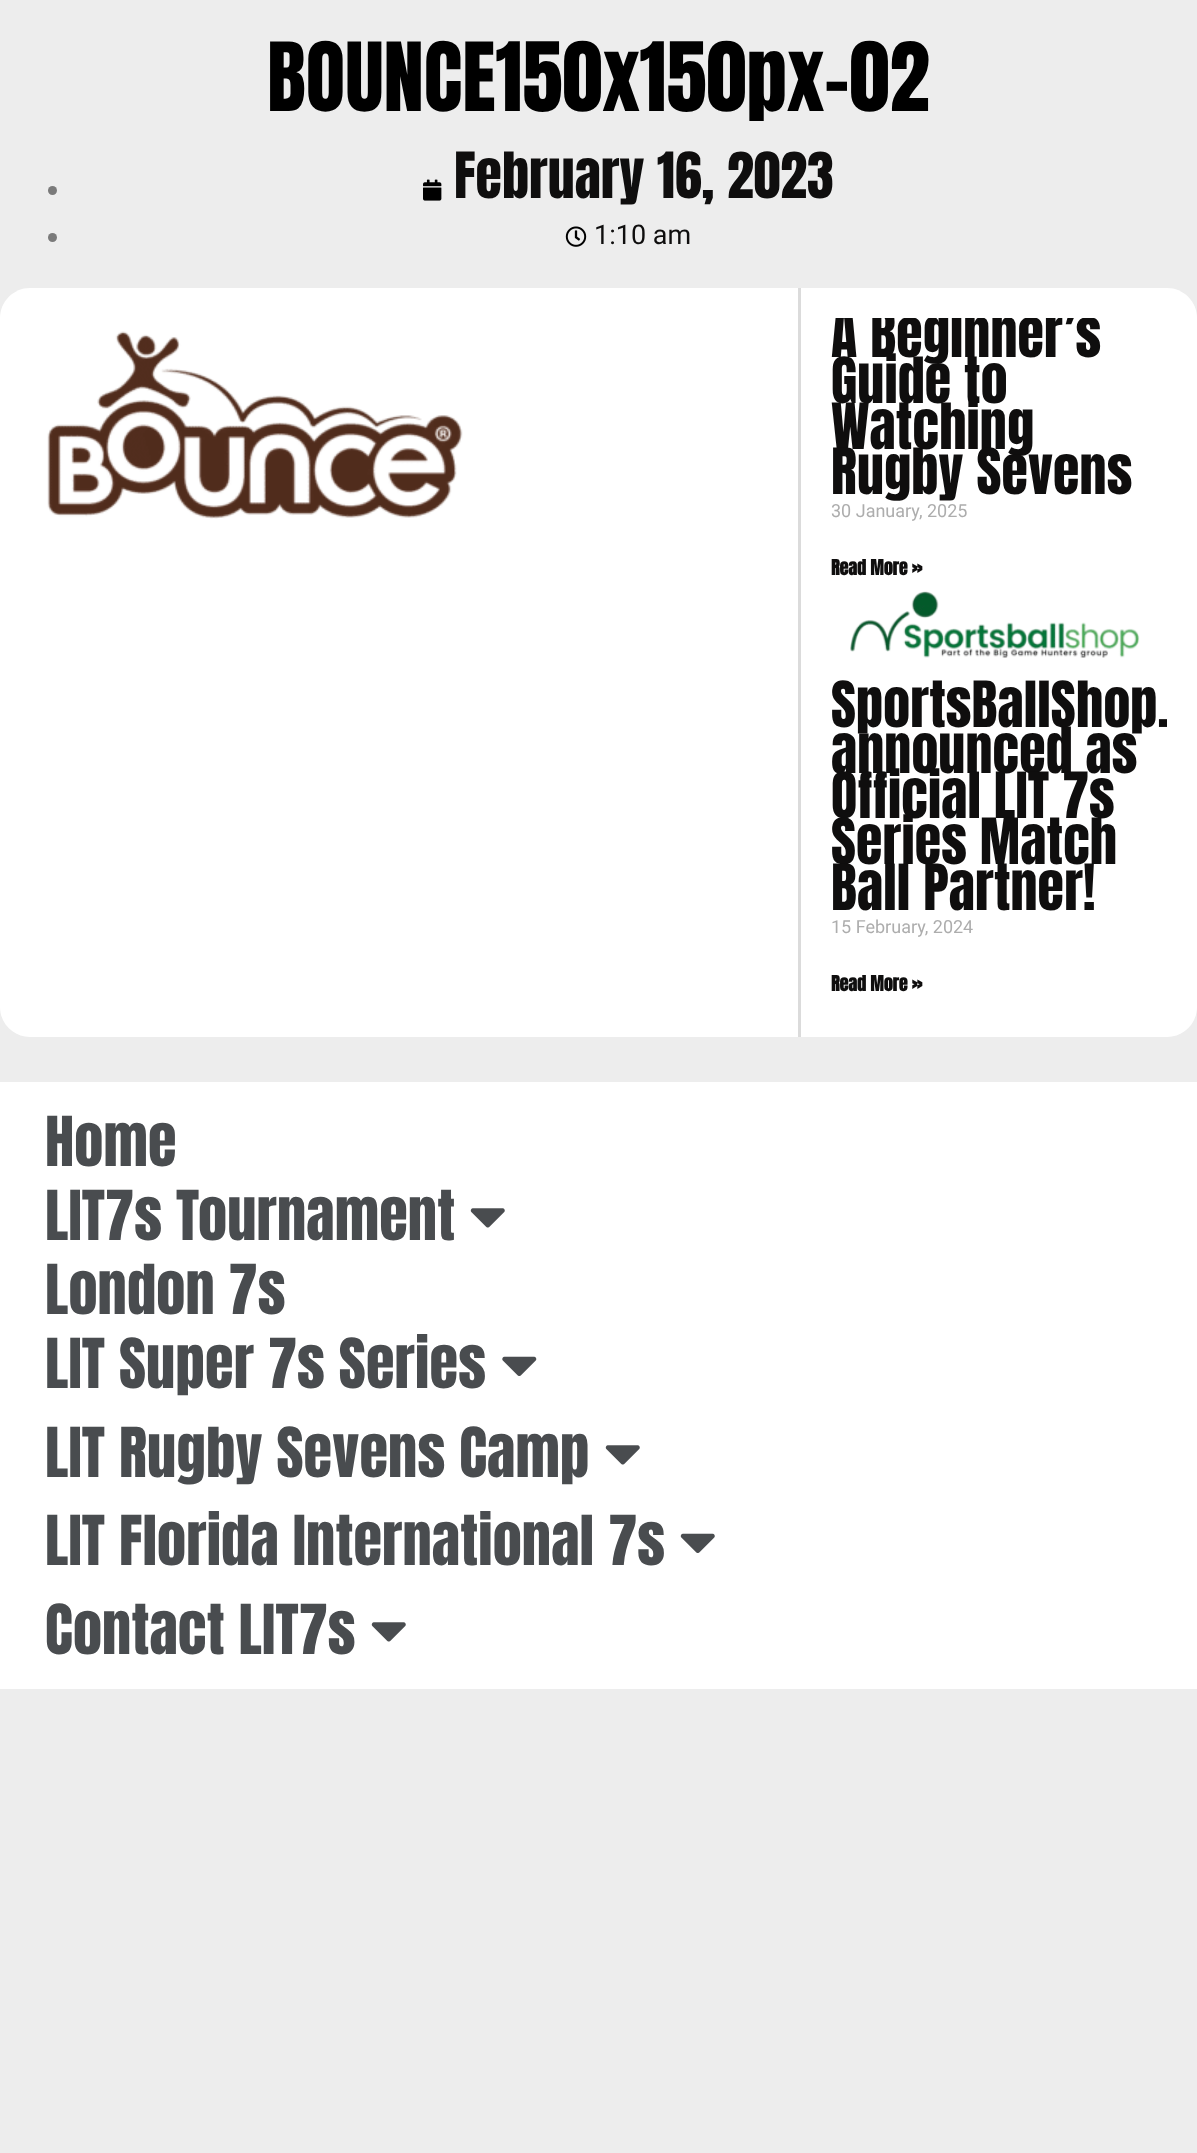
<?xml version="1.0" encoding="UTF-8"?>
<svg xmlns="http://www.w3.org/2000/svg" width="1197" height="2153">
    <defs>
        <clipPath id="clip1"><rect x="831" y="318" width="336" height="273"/></clipPath>
        <clipPath id="clip2"><rect x="831" y="591" width="336" height="416"/></clipPath>
    </defs>
    <rect width="100%" height="100%" fill="#EDEDED"/>
    <text x="267" y="111" font-family="Anton" font-size="81" fill="#000000">BOUNCE150x150px-02</text>
    <circle cx="52.5" cy="190.5" r="4.5" fill="#7A7A7A"/>
    <image x="423" y="179" width="19" height="22" href="img_01.png"/>
    <text x="454" y="198" font-family="Anton" font-size="54" fill="#0F0E0E">February 16, 2023</text>
    <circle cx="52.5" cy="237.5" r="4.5" fill="#7A7A7A"/>
    <image x="565" y="226" width="22" height="21" href="img_02.png"/>
    <text x="594" y="244" font-family="Roboto" font-size="27" fill="#0F0E0E">1:10 am</text>
    <path d="M 30 288 H 798 V 1037 H 30 C 13.5 1037 0 1023.5 0 1007 V 318 C 0 301.5 13.5 288 30 288 Z" fill="#FFFFFF"/>
    <image x="47" y="331" width="416" height="188" href="img_03.png"/>
    <path d="M 801 288 H 1167 C 1183.5 288 1197 301.5 1197 318 V 1007 C 1197 1023.5 1183.5 1037 1167 1037 H 801 Z" fill="#FFFFFF"/>
    <rect x="798" y="288" width="3" height="749" fill="#DBDBDB"/>
    <g clip-path="url(#clip1)">
        <text x="831" y="357" font-family="Anton" font-size="54" letter-spacing="0.15" fill="#0F0E0E">A Beginner’s</text>
    </g>
    <text font-family="Anton" font-size="54" letter-spacing="0.15" fill="#0F0E0E">
        <tspan x="831" y="403">Guide to</tspan>
        <tspan x="831" y="449">Watching</tspan>
        <tspan x="831" y="494">Rugby Sevens</tspan>
    </text>
    <text x="831" y="517" font-family="Roboto" font-size="18" fill="#ADADAD">30 January, 2025</text>
    <text x="831" y="575" font-family="Anton" font-size="18" font-weight="700" fill="#0F0E0E">Read More »</text>
    <image x="850" y="591" width="290" height="67" href="img_04.png"/>
    <g clip-path="url(#clip2)">
        <text x="831" y="727" font-family="Anton" font-size="54" letter-spacing="0.15" fill="#0F0E0E">SportsBallShop.</text>
    </g>
    <text font-family="Anton" font-size="54" letter-spacing="0.15" fill="#0F0E0E">
        <tspan x="831" y="773">announced as</tspan>
        <tspan x="831" y="818">Official LIT 7s</tspan>
        <tspan x="831" y="864">Series Match</tspan>
        <tspan x="831" y="910">Ball Partner!</tspan>
    </text>
    <text x="831" y="933" font-family="Roboto" font-size="18" fill="#ADADAD">15 February, 2024</text>
    <text x="831" y="991" font-family="Anton" font-size="18" font-weight="700" fill="#0F0E0E">Read More »</text>
    <rect x="0" y="1082" width="1197" height="607" fill="#FFFFFF"/>
    <text font-family="Anton" font-size="58.5" letter-spacing="0.15" fill="#494C4F">
        <tspan x="45" y="1166">Home</tspan>
        <tspan x="45" y="1240">LIT7s Tournament</tspan>
    </text>
    <image x="470" y="1208" width="35" height="20" href="img_05.png"/>
    <text font-family="Anton" font-size="58.5" letter-spacing="0.15" fill="#494C4F">
        <tspan x="45" y="1314">London 7s</tspan>
        <tspan x="45" y="1388">LIT Super 7s Series</tspan>
    </text>
    <image x="502" y="1356" width="35" height="20" href="img_06.png"/>
    <text x="45" y="1477" font-family="Anton" font-size="58.5" letter-spacing="0.15" fill="#494C4F">LIT Rugby Sevens Camp</text>
    <image x="605" y="1445" width="35" height="20" href="img_05.png"/>
    <text x="45" y="1565" font-family="Anton" font-size="58.5" letter-spacing="0.15" fill="#494C4F">LIT Florida International 7s</text>
    <image x="680" y="1533" width="35" height="20" href="img_07.png"/>
    <text x="45" y="1654" font-family="Anton" font-size="58.5" letter-spacing="0.15" fill="#494C4F">Contact LIT7s</text>
    <image x="371" y="1622" width="35" height="20" href="img_05.png"/>
</svg>
